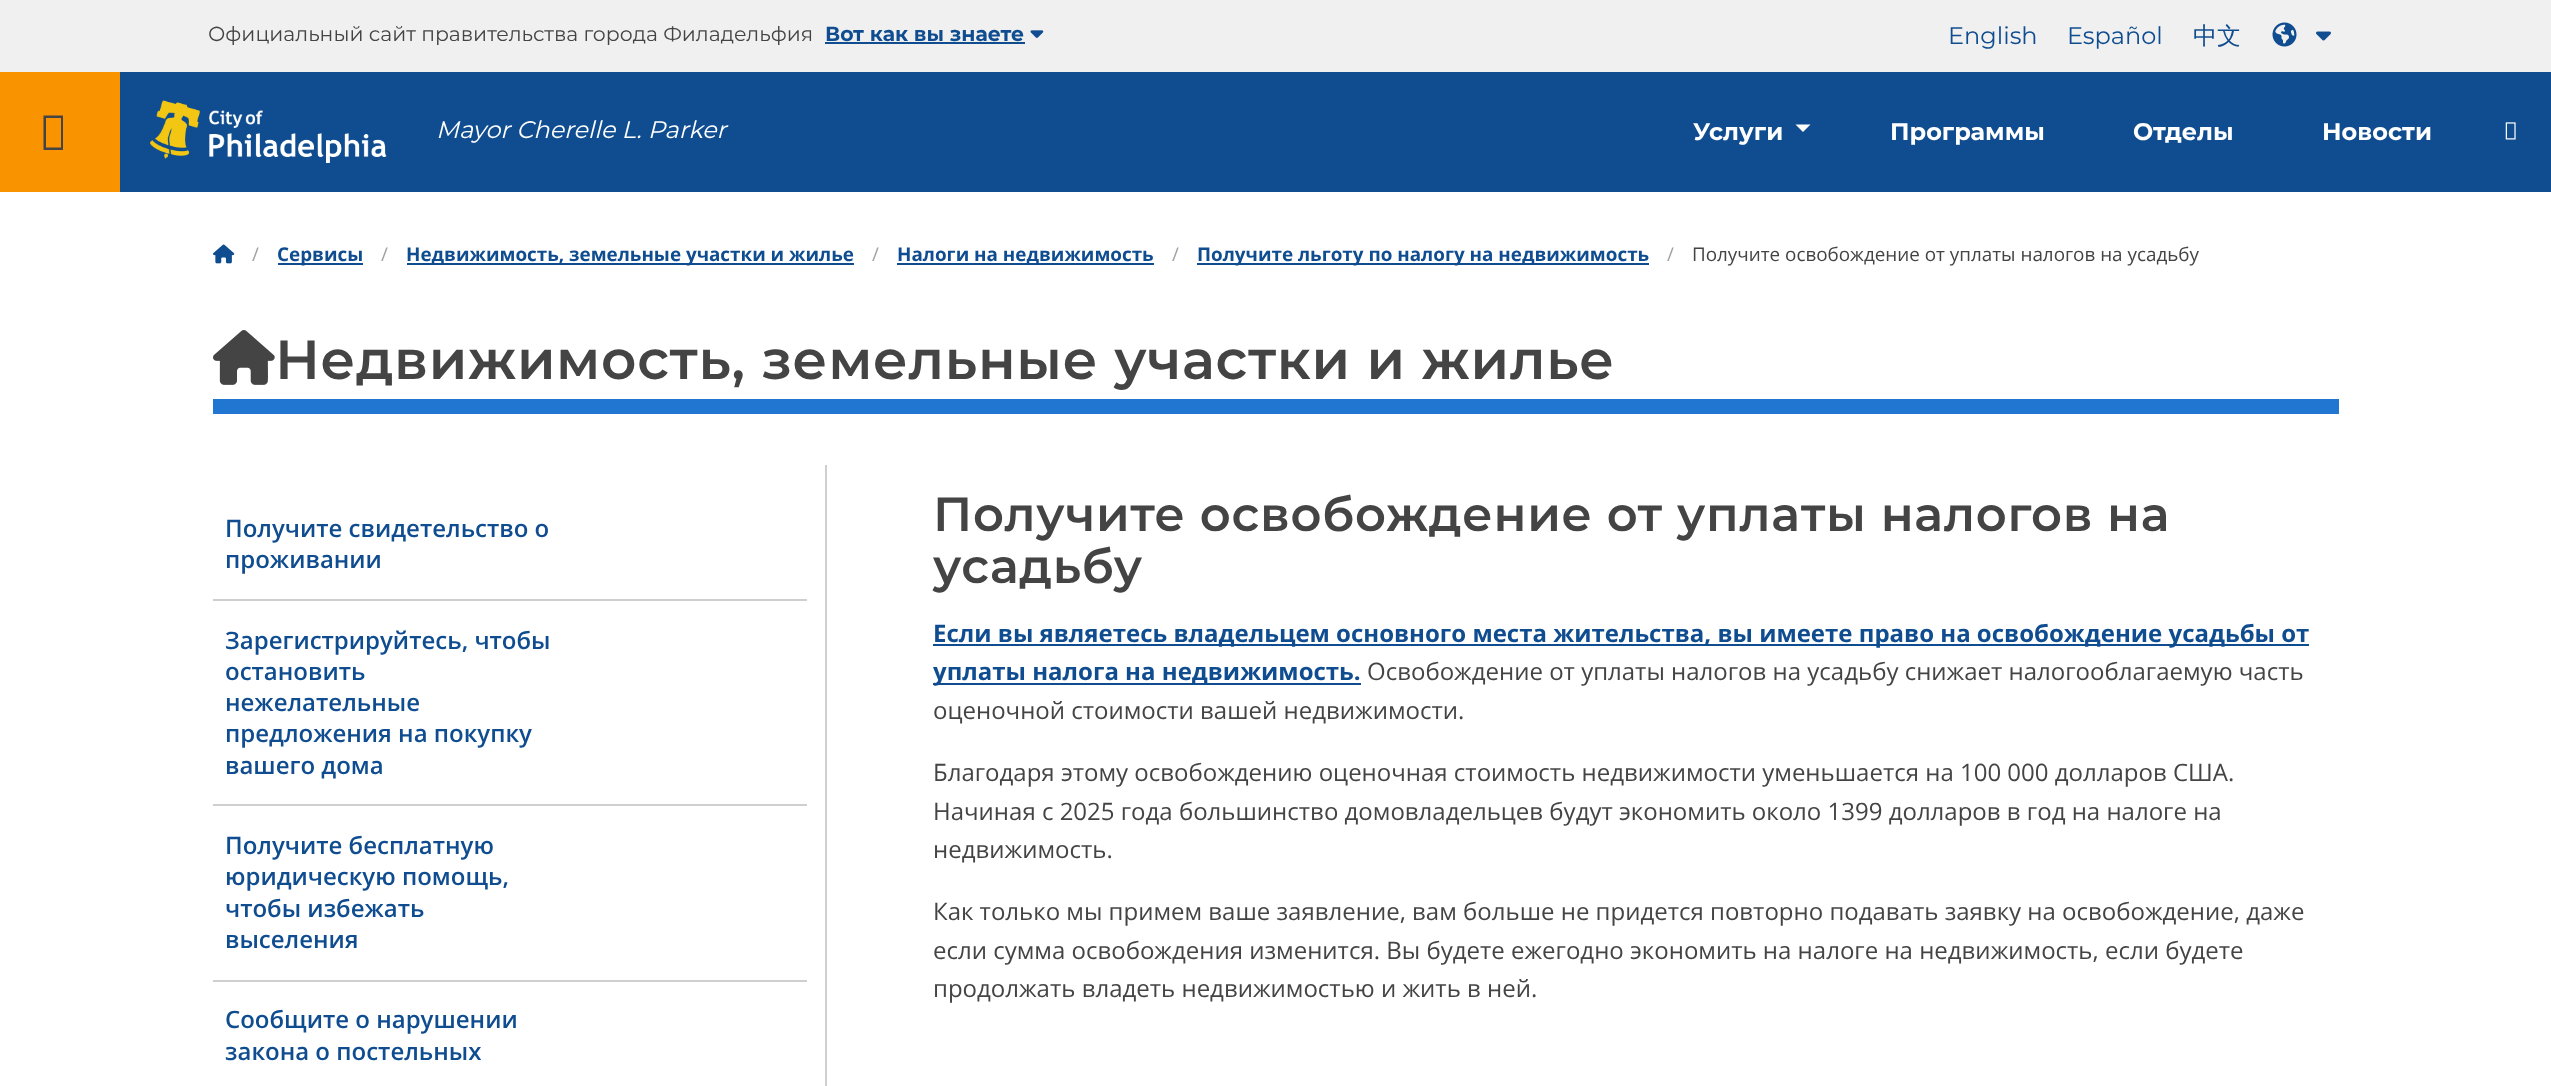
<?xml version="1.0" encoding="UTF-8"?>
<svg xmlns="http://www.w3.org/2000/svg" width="2551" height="1086">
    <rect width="100%" height="100%" fill="#FFFFFF"/>
    <rect x="120" y="72" width="2431" height="120" fill="#0F4D90"/>
    <rect x="0" y="0" width="2551" height="72" fill="#F0F0F0"/>
    <text x="208" y="41" font-family="Montserrat" font-size="20.4" fill="#444444">Официальный сайт правительства города Филадельфия</text>
    <text x="825" y="41" font-family="Montserrat" font-size="20.4" font-weight="700" fill="#0F4D90">Вот как вы знаете</text>
    <rect x="825" y="42" width="200" height="2" fill="#0F4D90"/>
    <image x="1030" y="30" width="14" height="8" href="img_01.png"/>
    <text x="1948" y="44" font-family="Montserrat" font-size="24" fill="#0F4D90">English</text>
    <text x="2067" y="44" font-family="Montserrat" font-size="24" fill="#0F4D90">Español</text>
    <text x="2193" y="44" font-family="WenQuanYi Zen Hei" font-size="24" font-weight="500" fill="#0F4D90">中文</text>
    <image x="2272" y="22" width="25" height="25" href="img_02.png"/>
    <image x="2316" y="31" width="15" height="10" href="img_03.png"/>
    <rect x="0" y="72" width="120" height="120" fill="#F99300"/>
    <path d="M 43.5 150 V 115.5 H 63 V 150 Z M 46 147.5 H 61 V 118 H 46 Z" fill="#444444"/>
    <image x="150" y="100" width="237" height="63" href="img_04.png"/>
    <text x="436" y="138" font-family="Montserrat" font-size="24" font-style="italic" fill="#FFFFFF">Mayor Cherelle L. Parker</text>
    <text x="1693" y="140" font-family="Montserrat" font-size="24" font-weight="700" fill="#FFFFFF">Услуги</text>
    <path d="M 1795.5 124.5 H 1810.5 L 1803 132 Z" fill="#FFFFFF"/>
    <text x="1890" y="140" font-family="Montserrat" font-size="24" font-weight="700" fill="#FFFFFF">Программы</text>
    <text x="2133" y="140" font-family="Montserrat" font-size="24" font-weight="700" fill="#FFFFFF">Отделы</text>
    <text x="2322" y="140" font-family="Montserrat" font-size="24" font-weight="700" fill="#FFFFFF">Новости</text>
    <image x="2505" y="122" width="11" height="18" href="img_05.png"/>
    <image x="213" y="244" width="22" height="20" href="img_06.png"/>
    <text x="252" y="261" font-family="Open Sans" font-size="18.85" fill="#A1A1A1">/</text>
    <rect x="278" y="263" width="85" height="2" fill="#0F4D90"/>
    <text x="277" y="261" font-family="Open Sans" font-size="18.85" font-weight="700" fill="#0F4D90">Сервисы</text>
    <text x="381" y="261" font-family="Open Sans" font-size="18.85" fill="#A1A1A1">/</text>
    <rect x="407" y="263" width="447" height="2" fill="#0F4D90"/>
    <text x="406" y="261" font-family="Open Sans" font-size="18.85" font-weight="700" fill="#0F4D90">Недвижимость, земельные участки и жилье</text>
    <text x="872" y="261" font-family="Open Sans" font-size="18.85" fill="#A1A1A1">/</text>
    <rect x="897" y="263" width="257" height="2" fill="#0F4D90"/>
    <text x="897" y="261" font-family="Open Sans" font-size="18.85" font-weight="700" fill="#0F4D90">Налоги на недвижимость</text>
    <text x="1172" y="261" font-family="Open Sans" font-size="18.85" fill="#A1A1A1">/</text>
    <rect x="1197" y="263" width="452" height="2" fill="#0F4D90"/>
    <text x="1197" y="261" font-family="Open Sans" font-size="18.85" font-weight="700" fill="#0F4D90">Получите льготу по налогу на недвижимость</text>
    <text x="1667" y="261" font-family="Open Sans" font-size="18.85" fill="#A1A1A1">/</text>
    <text x="1692" y="261" font-family="Open Sans" font-size="18.85" fill="#444444">Получите освобождение от уплаты налогов на усадьбу</text>
    <rect x="213" y="399" width="2126" height="15" fill="#2176D2"/>
    <image x="213" y="330" width="62" height="55" href="img_07.png"/>
    <text x="275" y="379" font-family="Montserrat" font-size="54.9" font-weight="100" letter-spacing="0.7" fill="#444444">Недвижимость, земельные участки и жилье</text>
    <rect x="825" y="465" width="2" height="621" fill="#CFCFCF"/>
    <rect x="213" y="599" width="594" height="2" fill="#CFCFCF"/>
    <text font-family="Open Sans" font-size="24" font-weight="600" fill="#0F4D90">
        <tspan x="225" y="537">Получите свидетельство о</tspan>
        <tspan x="225" y="568">проживании</tspan>
    </text>
    <rect x="213" y="804" width="594" height="2" fill="#CFCFCF"/>
    <text font-family="Open Sans" font-size="24" font-weight="600" fill="#0F4D90">
        <tspan x="225" y="649">Зарегистрируйтесь, чтобы</tspan>
        <tspan x="225" y="680">остановить</tspan>
        <tspan x="225" y="711">нежелательные</tspan>
        <tspan x="225" y="742">предложения на покупку</tspan>
        <tspan x="225" y="774">вашего дома</tspan>
    </text>
    <rect x="213" y="980" width="594" height="2" fill="#CFCFCF"/>
    <text font-family="Open Sans" font-size="24" font-weight="600" fill="#0F4D90">
        <tspan x="225" y="854">Получите бесплатную</tspan>
        <tspan x="225" y="885">юридическую помощь,</tspan>
        <tspan x="225" y="917">чтобы избежать</tspan>
        <tspan x="225" y="948">выселения</tspan>
    </text>
    <text font-family="Open Sans" font-size="24" font-weight="600" fill="#0F4D90">
        <tspan x="225" y="1028">Сообщите о нарушении</tspan>
        <tspan x="225" y="1060">закона о постельных</tspan>
    </text>
    <text font-family="Montserrat" font-size="48" font-weight="100" letter-spacing="0.7" fill="#444444">
        <tspan x="933" y="531">Получите освобождение от уплаты налогов на</tspan>
        <tspan x="933" y="583">усадьбу</tspan>
    </text>
    <rect x="933" y="644" width="1376" height="2" fill="#0F4D90"/>
    <text x="933" y="642" font-family="Open Sans" font-size="24" font-weight="700" fill="#0F4D90">Если вы являетесь владельцем основного места жительства, вы имеете право на освобождение усадьбы от</text>
    <rect x="933" y="683" width="428" height="2" fill="#0F4D90"/>
    <text x="933" y="680" font-family="Open Sans" font-size="24" font-weight="700" fill="#0F4D90">уплаты налога на недвижимость.</text>
    <text x="1367" y="680" font-family="Open Sans" font-size="24" fill="#444444">Освобождение от уплаты налогов на усадьбу снижает налогооблагаемую часть</text>
    <text x="933" y="719" font-family="Open Sans" font-size="24" fill="#444444">оценочной стоимости вашей недвижимости.</text>
    <text font-family="Open Sans" font-size="24" fill="#444444">
        <tspan x="933" y="781">Благодаря этому освобождению оценочная стоимость недвижимости уменьшается на 100 000 долларов США.</tspan>
        <tspan x="933" y="820">Начиная с 2025 года большинство домовладельцев будут экономить около 1399 долларов в год на налоге на</tspan>
        <tspan x="933" y="858">недвижимость.</tspan>
    </text>
    <text font-family="Open Sans" font-size="24" fill="#444444">
        <tspan x="933" y="920">Как только мы примем ваше заявление, вам больше не придется повторно подавать заявку на освобождение, даже</tspan>
        <tspan x="933" y="959">если сумма освобождения изменится. Вы будете ежегодно экономить на налоге на недвижимость, если будете</tspan>
        <tspan x="933" y="997">продолжать владеть недвижимостью и жить в ней.</tspan>
    </text>
</svg>
